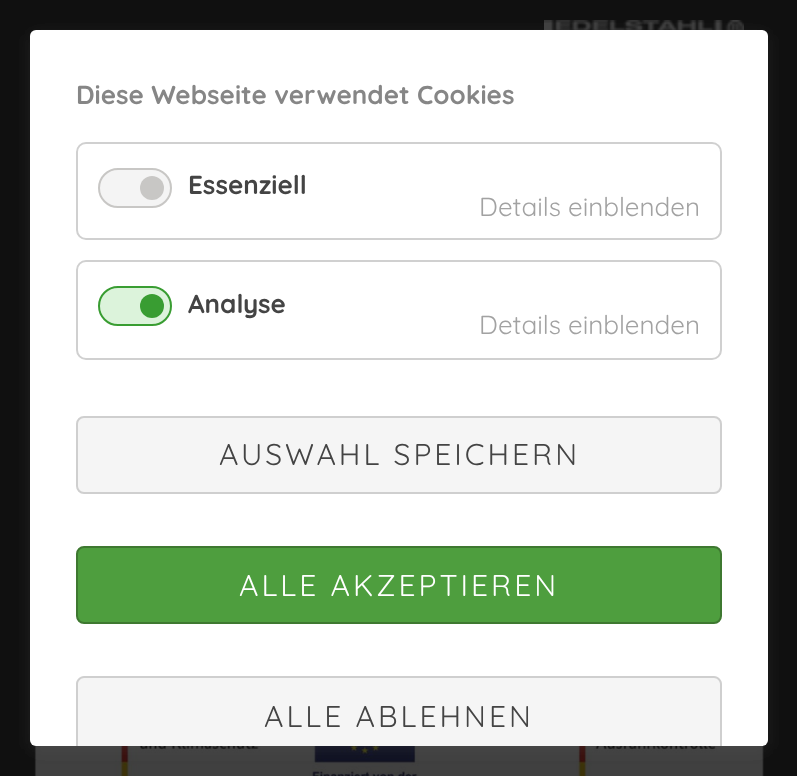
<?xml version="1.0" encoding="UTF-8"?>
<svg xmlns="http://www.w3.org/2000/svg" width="797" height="776">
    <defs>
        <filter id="blur1" x="-50%" y="-200%" width="200%" height="500%"><feGaussianBlur stdDeviation="8"/></filter>
    </defs>
    <rect width="100%" height="100%" fill="#101010"/>
    <image x="544" y="20" width="200" height="10" href="img_01.png"/>
    <image x="34" y="745" width="730" height="31" href="img_02.png"/>
    <rect x="30" y="34" width="738" height="716" rx="6" fill="#636363" fill-opacity="0.2" filter="url(#blur1)"/>
    <rect x="30" y="30" width="738" height="716" rx="6" fill="#FFFFFF"/>
    <text x="76" y="104" font-family="Quicksand" font-size="26" font-weight="700" fill="#868686">Diese Webseite verwendet Cookies</text>
    <rect x="77" y="143" width="644" height="96" rx="9" fill="none" stroke="#D0D0D0" stroke-width="2"/>
    <rect x="99" y="169" width="72" height="38" rx="19" fill="#F4F4F4" stroke="#C8C7C5" stroke-width="2"/>
    <text x="188" y="194" font-family="Quicksand" font-size="26" font-weight="700" fill="#444444">Essenziell</text>
    <circle cx="152" cy="188" r="12" fill="#C8C7C5"/>
    <text x="479" y="216" font-family="Quicksand" font-size="26" fill="#A2A2A2">Details einblenden</text>
    <rect x="77" y="261" width="644" height="98" rx="9" fill="none" stroke="#D0D0D0" stroke-width="2"/>
    <rect x="99" y="287" width="72" height="38" rx="19" fill="#DCF3DB" stroke="#399D32" stroke-width="2"/>
    <text x="188" y="313" font-family="Quicksand" font-size="26" font-weight="700" fill="#444444">Analyse</text>
    <circle cx="152" cy="306" r="12" fill="#399D32"/>
    <text x="479" y="334" font-family="Quicksand" font-size="26" fill="#A2A2A2">Details einblenden</text>
    <rect x="77" y="417" width="644" height="76" rx="7" fill="#F5F5F5" stroke="#CFCFCF" stroke-width="2"/>
    <text x="219" y="465" font-family="Quicksand" font-size="30" letter-spacing="3" fill="#444444">AUSWAHL SPEICHERN</text>
    <rect x="77" y="547" width="644" height="76" rx="7" fill="#4E9E3E" stroke="#3E7830" stroke-width="2"/>
    <text x="239" y="596" font-family="Quicksand" font-size="30" letter-spacing="3" fill="#FFFFFF">ALLE AKZEPTIEREN</text>
    <path d="M 84 676 H 714 C 718.5 676 722 679.5 722 684 V 746 H 76 V 684 C 76 679.5 79.5 676 84 676 Z" fill="#F5F5F5"/>
    <path d="M 84 676 C 80 676 76 680 76 684 V 746 H 78 V 684 C 78 681 81 678 84 678 H 714 C 717 678 720 681 720 684 V 746 H 722 V 684 C 722 680 718 676 714 676 Z" fill="#CFCFCF"/>
    <text x="264" y="727" font-family="Quicksand" font-size="30" letter-spacing="3" fill="#444444">ALLE ABLEHNEN</text>
</svg>
